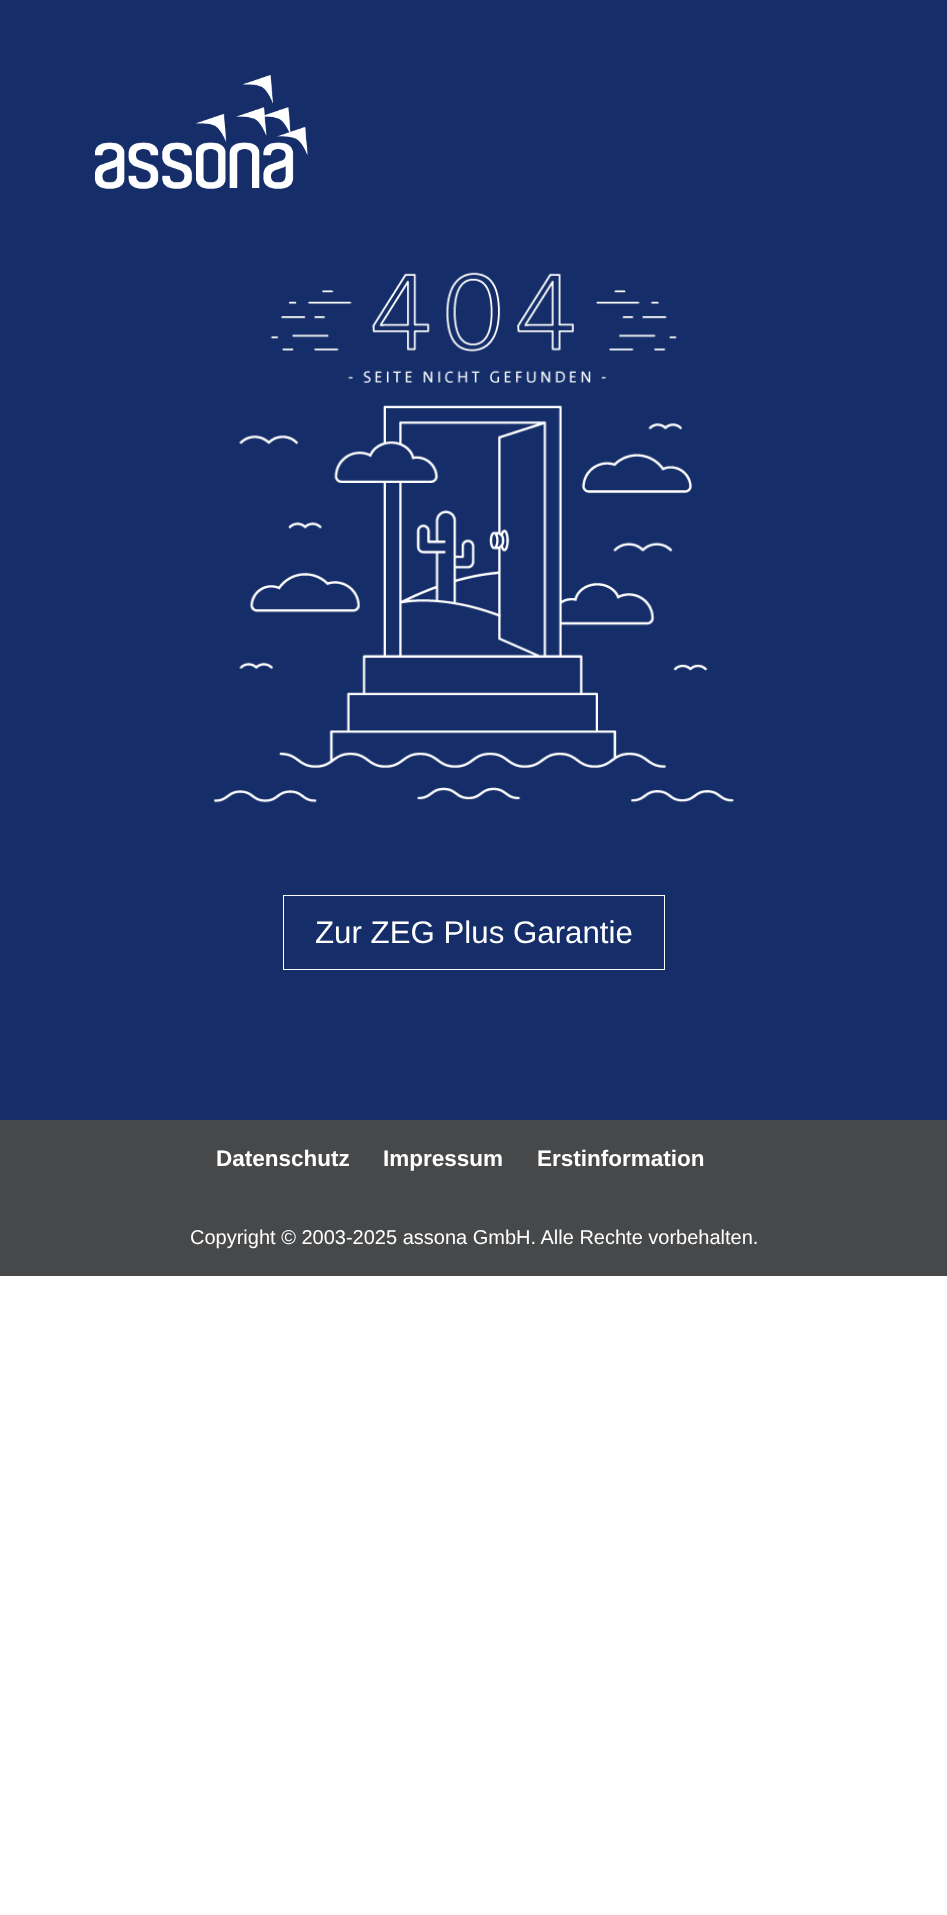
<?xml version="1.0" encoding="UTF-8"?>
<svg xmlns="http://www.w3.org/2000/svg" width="947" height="1915">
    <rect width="100%" height="100%" fill="#FFFFFF"/>
    <rect x="0" y="0" width="947" height="1120" fill="#152E69"/>
    <image x="95" y="75" width="213" height="114" href="img_01.png"/>
    <image x="214" y="272" width="520" height="531" href="img_02.png"/>
    <rect x="283.5" y="895.5" width="381" height="74" fill="none" stroke="#FFFFFF"/>
    <text x="315" y="943" font-family="Liberation Sans" font-size="31.25" fill="#FFFFFF">Zur ZEG Plus Garantie</text>
    <rect x="0" y="1120" width="947" height="156" fill="#474849"/>
    <text x="216" y="1166" font-family="Liberation Sans" font-size="22.5" font-weight="700" fill="#FFFFFF">Datenschutz</text>
    <text x="383" y="1166" font-family="Liberation Sans" font-size="22.5" font-weight="700" fill="#FFFFFF">Impressum</text>
    <text x="537" y="1166" font-family="Liberation Sans" font-size="22.5" font-weight="700" fill="#FFFFFF">Erstinformation</text>
    <text x="190" y="1244" font-family="Liberation Sans" font-size="20" fill="#FFFFFF">Copyright © 2003-2025 assona GmbH. Alle Rechte vorbehalten.</text>
</svg>
